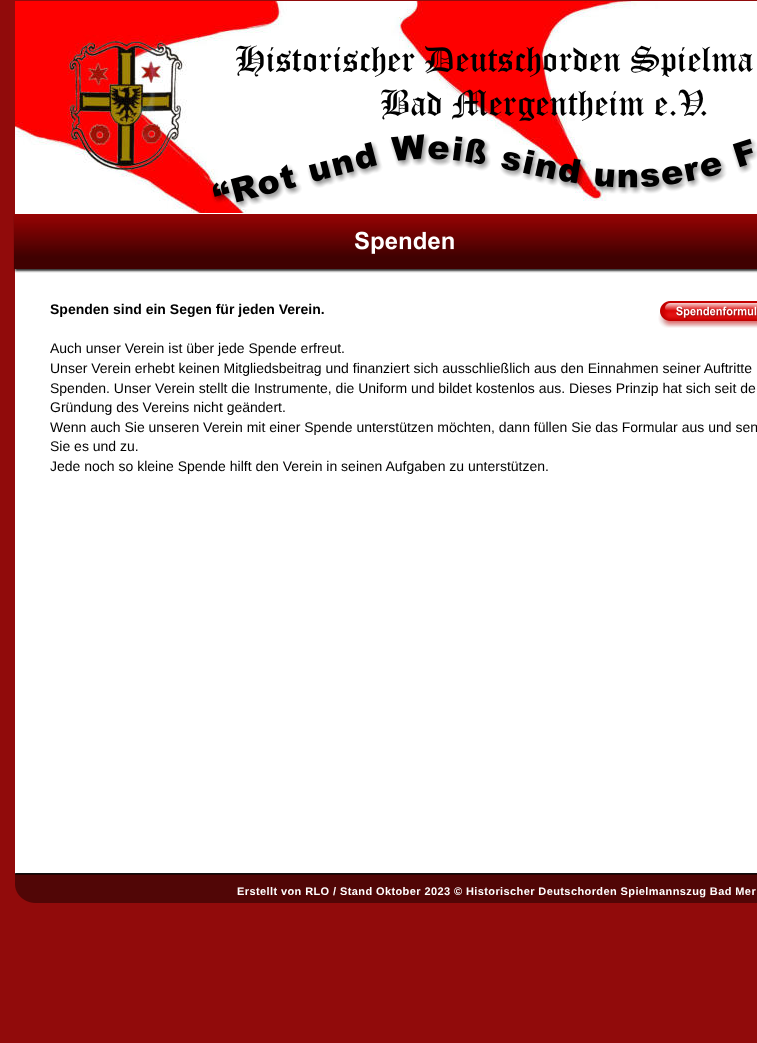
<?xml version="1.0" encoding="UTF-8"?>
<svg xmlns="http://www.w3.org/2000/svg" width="757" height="1043">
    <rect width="100%" height="100%" fill="#910B0B"/>
    <image x="15" y="1" width="742" height="212" href="img_01.png"/>
    <image x="59" y="35" width="139" height="137" href="img_02.png"/>
    <text x="235" y="72" font-family="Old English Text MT" font-size="36" font-weight="700" fill="#000000">Historischer Deutschorden Spielma</text>
    <text x="380" y="116" font-family="Old English Text MT" font-size="36" font-weight="700" fill="#000000">Bad Mergentheim e.V.</text>
    <image x="211" y="134" width="546" height="75" href="img_03.png"/>
    <rect x="15" y="213" width="742" height="661" fill="#FFFFFF"/>
    <image x="13" y="214" width="744" height="59" href="img_04.png"/>
    <image x="658" y="301" width="99" height="27" href="img_05.png"/>
    <text x="50" y="314" font-family="Liberation Sans" font-size="14" font-weight="700" fill="#000000">Spenden sind ein Segen für jeden Verein.</text>
    <text font-family="Liberation Sans" font-size="14" fill="#000000">
        <tspan x="50" y="353">Auch unser Verein ist über jede Spende erfreut.</tspan>
        <tspan x="50" y="373">Unser Verein erhebt keinen Mitgliedsbeitrag und finanziert sich ausschließlich aus den Einnahmen seiner Auftritte</tspan>
        <tspan x="50" y="393">Spenden. Unser Verein stellt die Instrumente, die Uniform und bildet kostenlos aus. Dieses Prinzip hat sich seit de</tspan>
        <tspan x="50" y="412">Gründung des Vereins nicht geändert.</tspan>
        <tspan x="50" y="432">Wenn auch Sie unseren Verein mit einer Spende unterstützen möchten, dann füllen Sie das Formular aus und sen</tspan>
        <tspan x="50" y="451">Sie es und zu.</tspan>
        <tspan x="50" y="471">Jede noch so kleine Spende hilft den Verein in seinen Aufgaben zu unterstützen.</tspan>
    </text>
    <image x="15" y="873" width="742" height="30" href="img_06.png"/>
    <text x="237" y="895" font-family="Liberation Sans" font-size="11" font-weight="700" letter-spacing="0.4" fill="#FFFFFF">Erstellt von RLO / Stand Oktober 2023 © Historischer Deutschorden Spielmannszug Bad Mer</text>
</svg>
